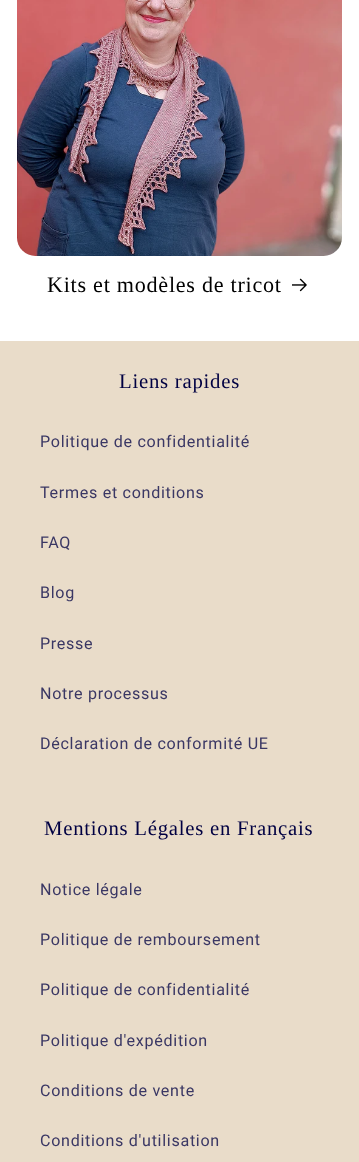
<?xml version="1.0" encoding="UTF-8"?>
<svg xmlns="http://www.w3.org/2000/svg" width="359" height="1162">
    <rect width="100%" height="100%" fill="#FFFFFF"/>
    <image x="17" y="0" width="325" height="256" href="img_01.png"/>
    <text x="47" y="292" font-family="Liberation Serif" font-size="22.1" letter-spacing="0.75" fill="#000000">Kits et modèles de tricot</text>
    <image x="292" y="278" width="15" height="14" href="img_02.png"/>
    <rect x="0" y="341" width="359" height="821" fill="#E9DCC9"/>
    <text x="119" y="388" font-family="Liberation Serif" font-size="20.75" letter-spacing="0.75" fill="#000042">Liens rapides</text>
    <text x="40" y="447" font-family="Roboto" font-size="16.1" letter-spacing="0.7" fill="#3A3764">Politique de confidentialité</text>
    <text x="40" y="498" font-family="Roboto" font-size="16.1" letter-spacing="0.7" fill="#3A3764">Termes et conditions</text>
    <text x="40" y="548" font-family="Roboto" font-size="16.1" letter-spacing="0.7" fill="#3A3764">FAQ</text>
    <text x="40" y="598" font-family="Roboto" font-size="16.1" letter-spacing="0.7" fill="#3A3764">Blog</text>
    <text x="40" y="649" font-family="Roboto" font-size="16.1" letter-spacing="0.7" fill="#3A3764">Presse</text>
    <text x="40" y="699" font-family="Roboto" font-size="16.1" letter-spacing="0.7" fill="#3A3764">Notre processus</text>
    <text x="40" y="749" font-family="Roboto" font-size="16.1" letter-spacing="0.7" fill="#3A3764">Déclaration de conformité UE</text>
    <text x="44" y="835" font-family="Liberation Serif" font-size="20.75" letter-spacing="0.75" fill="#000042">Mentions Légales en Français</text>
    <text x="40" y="895" font-family="Roboto" font-size="16.1" letter-spacing="0.7" fill="#3A3764">Notice légale</text>
    <text x="40" y="945" font-family="Roboto" font-size="16.1" letter-spacing="0.7" fill="#3A3764">Politique de remboursement</text>
    <text x="40" y="995" font-family="Roboto" font-size="16.1" letter-spacing="0.7" fill="#3A3764">Politique de confidentialité</text>
    <text x="40" y="1046" font-family="Roboto" font-size="16.1" letter-spacing="0.7" fill="#3A3764">Politique d'expédition</text>
    <text x="40" y="1096" font-family="Roboto" font-size="16.1" letter-spacing="0.7" fill="#3A3764">Conditions de vente</text>
    <text x="40" y="1146" font-family="Roboto" font-size="16.1" letter-spacing="0.7" fill="#3A3764">Conditions d'utilisation</text>
</svg>
